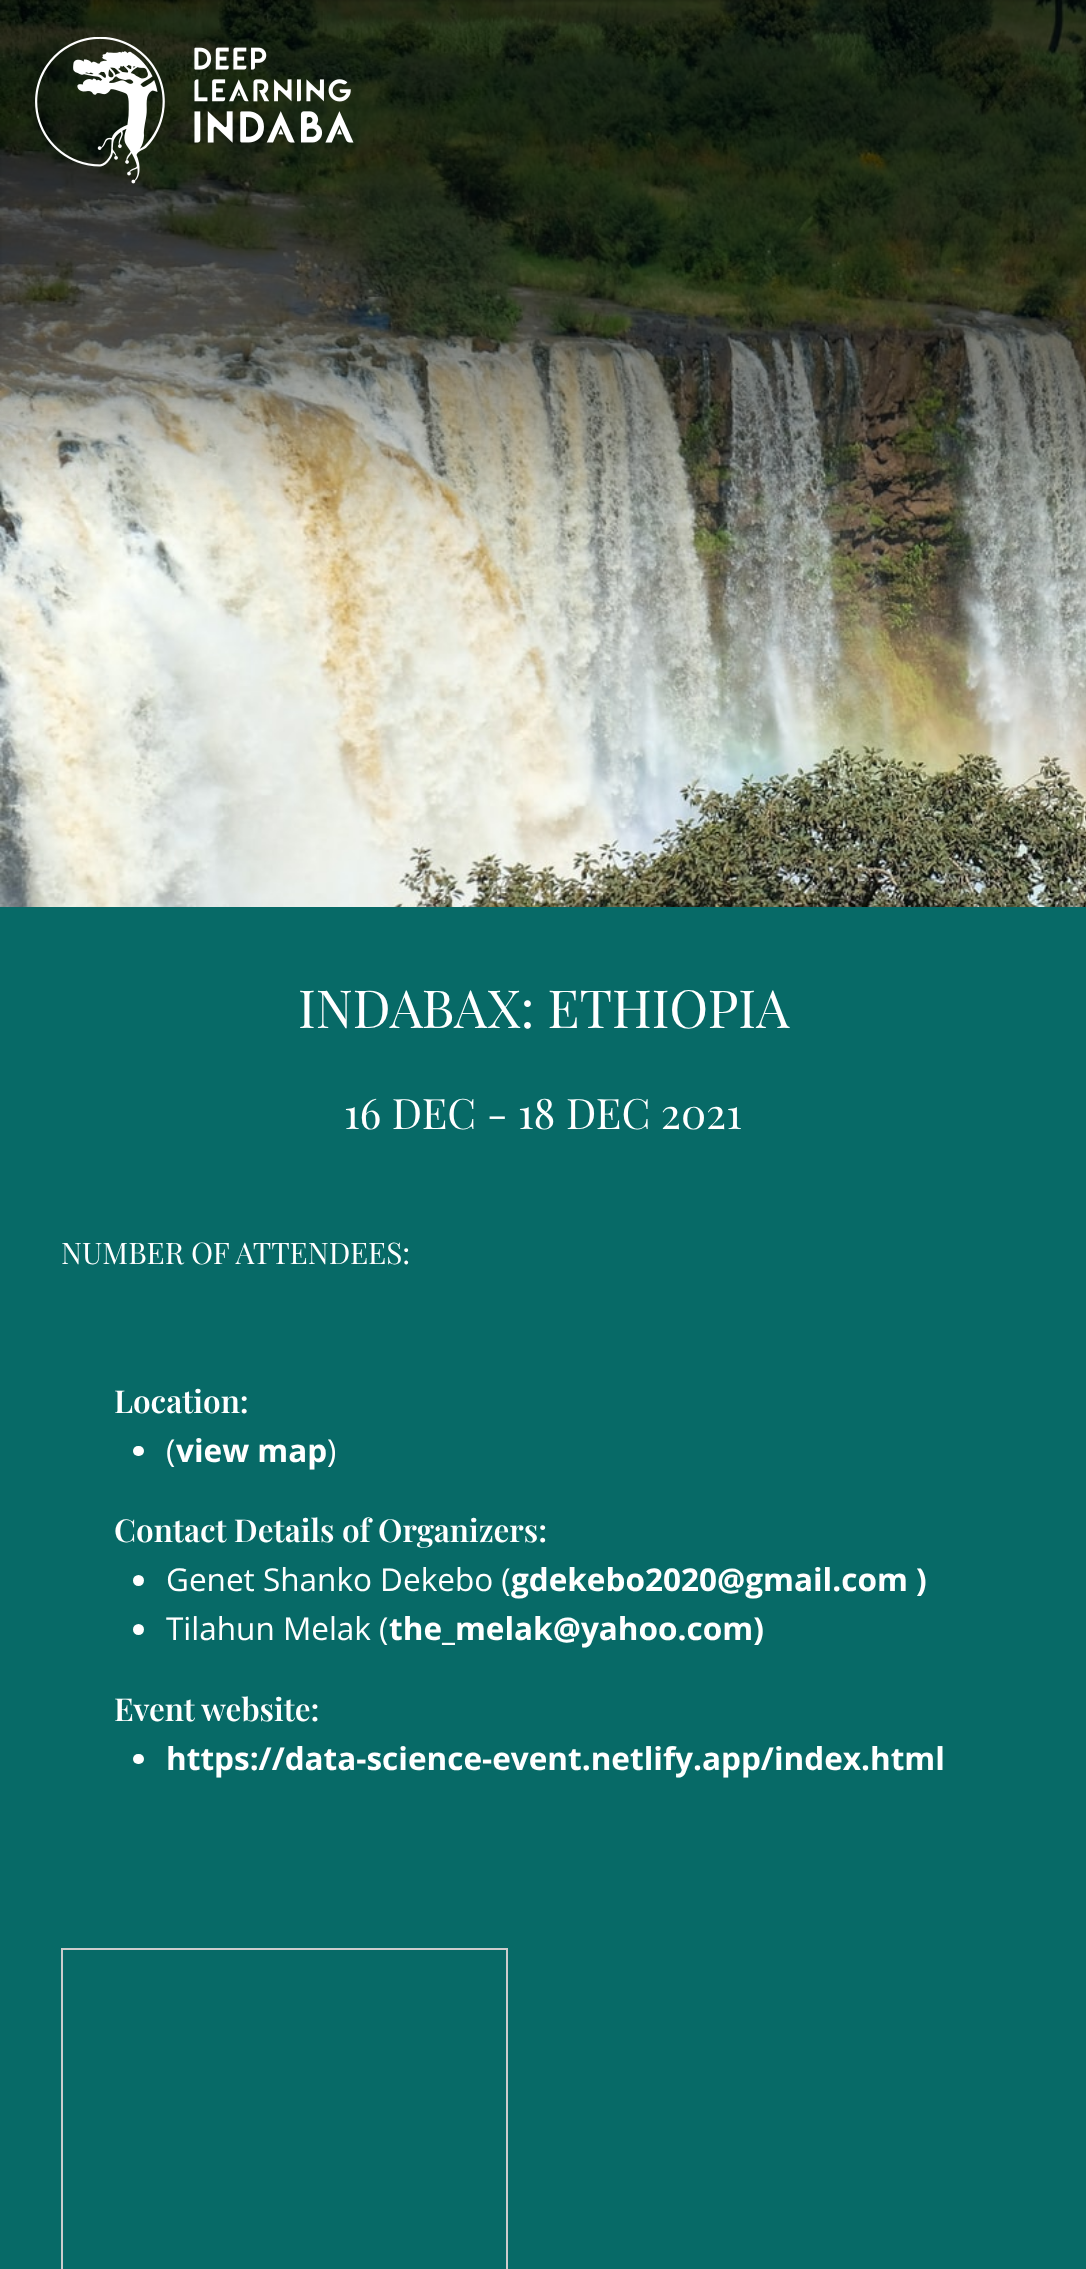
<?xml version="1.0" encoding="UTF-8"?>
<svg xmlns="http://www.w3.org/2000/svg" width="1086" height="2269">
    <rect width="100%" height="100%" fill="#FFFFFF"/>
    <image x="0" y="0" width="1086" height="907" href="img_01.png"/>
    <image x="0" y="0" width="1086" height="620" href="img_02.png"/>
    <image x="35" y="37" width="319" height="147" href="img_03.png"/>
    <rect x="0" y="907" width="1086" height="1362" fill="#076A67"/>
    <text x="298" y="1028" font-family="Playfair Display" font-size="52.5" fill="#FFFFFF">INDABAX: ETHIOPIA</text>
    <text x="344" y="1129" font-family="Playfair Display" font-size="42" fill="#FFFFFF">16 DEC - 18 DEC 2021</text>
    <text x="61" y="1264" font-family="Playfair Display" font-size="29.75" fill="#FFFFFF">NUMBER OF ATTENDEES:</text>
    <text x="114" y="1413" font-family="Playfair Display" font-size="31.5" font-weight="600" fill="#FFFFFF">Location:</text>
    <rect x="133" y="1446" width="11" height="10" rx="5" fill="#FFFFFF"/>
    <text x="166" y="1462" font-family="Open Sans" font-size="31.5" fill="#FFFFFF">(</text>
    <text x="176" y="1462" font-family="Open Sans" font-size="31.5" font-weight="700" fill="#FFFFFF">view map</text>
    <text x="327" y="1462" font-family="Open Sans" font-size="31.5" fill="#FFFFFF">)</text>
    <text x="114" y="1542" font-family="Playfair Display" font-size="31.5" font-weight="600" fill="#FFFFFF">Contact Details of Organizers:</text>
    <circle cx="138.5" cy="1580.5" r="5.5" fill="#FFFFFF"/>
    <text x="166" y="1591" font-family="Open Sans" font-size="31.5" fill="#FFFFFF">Genet Shanko Dekebo (</text>
    <text x="511" y="1591" font-family="Open Sans" font-size="31.5" font-weight="700" fill="#FFFFFF">gdekebo2020@gmail.com )</text>
    <circle cx="138.5" cy="1629.5" r="5.5" fill="#FFFFFF"/>
    <text x="166" y="1640" font-family="Open Sans" font-size="31.5" fill="#FFFFFF">Tilahun Melak (</text>
    <text x="389" y="1640" font-family="Open Sans" font-size="31.5" font-weight="700" fill="#FFFFFF">the_melak@yahoo.com)</text>
    <text x="114" y="1721" font-family="Playfair Display" font-size="31.5" font-weight="600" fill="#FFFFFF">Event website:</text>
    <rect x="133" y="1754" width="11" height="10" rx="5" fill="#FFFFFF"/>
    <text x="166" y="1770" font-family="Open Sans" font-size="31.5" font-weight="700" fill="#FFFFFF">https://data-science-event.netlify.app/index.html</text>
    <rect x="62" y="1949" width="445" height="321" fill="none" stroke="#CCCCCC" stroke-width="2"/>
</svg>
